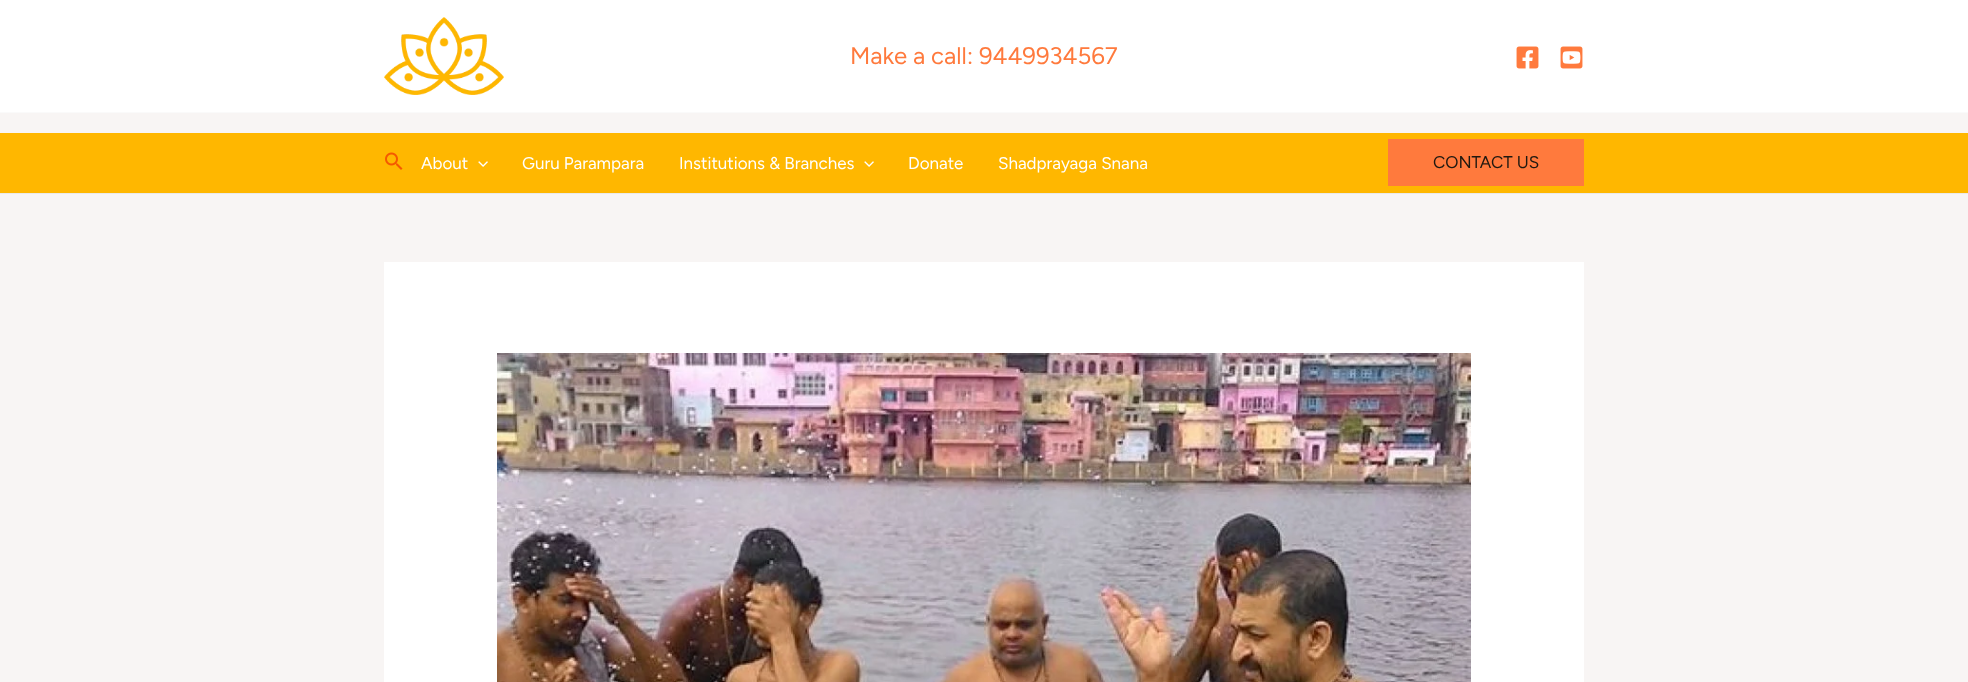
<?xml version="1.0" encoding="UTF-8"?>
<svg xmlns="http://www.w3.org/2000/svg" width="1968" height="682">
    <rect width="100%" height="100%" fill="#F8F5F4"/>
    <rect x="0" y="0" width="1968" height="112" fill="#FFFFFF"/>
    <rect x="0" y="112" width="1968" height="1" fill="#FAFAFA"/>
    <image x="384" y="17" width="120" height="78" href="img_01.png"/>
    <text x="850" y="64" font-family="Figtree" font-size="24" font-weight="300" fill="#FF7A3D">Make a call: 9449934567</text>
    <image x="1516" y="46" width="23" height="23" href="img_02.png"/>
    <image x="1560" y="46" width="23" height="23" href="img_03.png"/>
    <rect x="0" y="133" width="1968" height="60" fill="#FFB700"/>
    <rect x="0" y="193" width="1968" height="1" fill="#EAEAEA"/>
    <image x="385" y="152" width="18" height="18" href="img_04.png"/>
    <text x="421" y="169" font-family="Figtree" font-size="17" font-weight="300" fill="#FFFFFF">About</text>
    <image x="478" y="161" width="10" height="6" href="img_05.png"/>
    <text x="522" y="169" font-family="Figtree" font-size="17" font-weight="300" fill="#FFFFFF">Guru Parampara</text>
    <text x="679" y="169" font-family="Figtree" font-size="17" font-weight="300" fill="#FFFFFF">Institutions &amp; Branches</text>
    <image x="864" y="161" width="10" height="6" href="img_05.png"/>
    <text x="908" y="169" font-family="Figtree" font-size="17" font-weight="300" fill="#FFFFFF">Donate</text>
    <text x="998" y="169" font-family="Figtree" font-size="17" font-weight="300" fill="#FFFFFF">Shadprayaga Snana</text>
    <rect x="1388" y="139" width="196" height="47" fill="#FF7A3D"/>
    <text x="1433" y="168" font-family="Figtree" font-size="17" font-weight="300" fill="#1E1810">CONTACT US</text>
    <rect x="384" y="262" width="1200" height="420" fill="#FFFFFF"/>
    <image x="497" y="353" width="974" height="329" href="img_06.png"/>
</svg>
